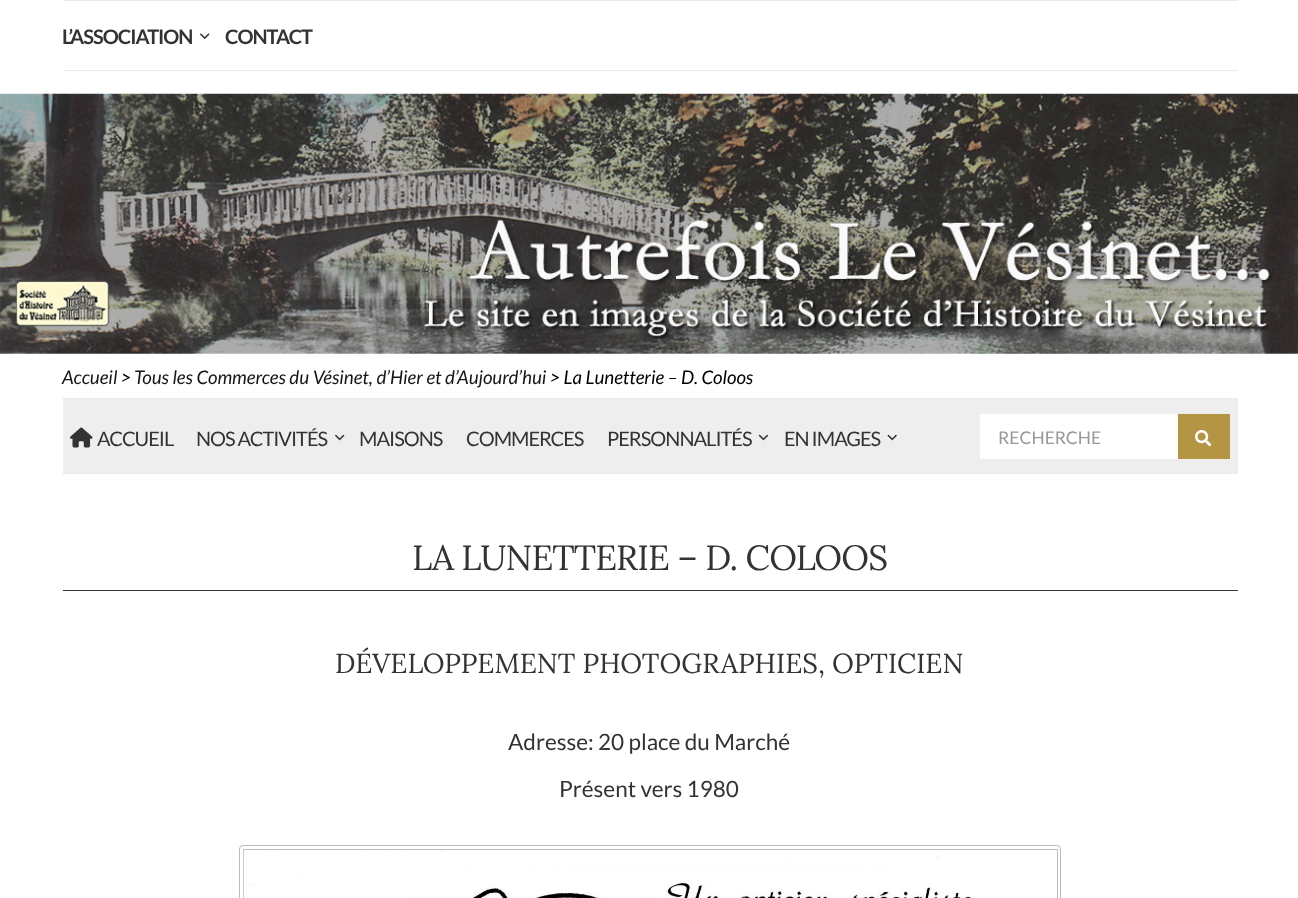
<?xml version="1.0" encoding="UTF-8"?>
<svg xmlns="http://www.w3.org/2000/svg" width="1298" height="898">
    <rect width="100%" height="100%" fill="#FFFFFF"/>
    <rect x="63" y="0" width="1175" height="1" fill="#EBEBEB"/>
    <rect x="63" y="70" width="1175" height="1" fill="#EBEBEB"/>
    <text x="62" y="44" font-family="Lato" font-size="20" font-weight="700" letter-spacing="-1" fill="#333333">L’ASSOCIATION</text>
    <image x="200" y="33" width="10" height="6" href="img_01.png"/>
    <text x="225" y="44" font-family="Lato" font-size="20" font-weight="700" letter-spacing="-1" fill="#333333">CONTACT</text>
    <image x="0" y="93" width="1298" height="261" href="img_02.png"/>
    <text x="62" y="384" font-family="Lato" font-size="18.75" font-style="italic" fill="#161616">Accueil</text>
    <text x="121" y="384" font-family="Lato" font-size="18.75" font-style="italic" fill="#000000">&gt;</text>
    <text x="134" y="384" font-family="Lato" font-size="18.75" font-style="italic" fill="#161616">Tous les Commerces du Vésinet, d’Hier et d’Aujourd’hui</text>
    <text x="550" y="384" font-family="Lato" font-size="18.75" font-style="italic" fill="#000000">&gt; La Lunetterie – D. Coloos</text>
    <rect x="63" y="399" width="1175" height="74" fill="#EEEEEE"/>
    <rect x="63" y="398" width="1175" height="1" fill="#EBEBEB"/>
    <rect x="63" y="473" width="1175" height="1" fill="#EBEBEB"/>
    <image x="70" y="427" width="23" height="21" href="img_03.png"/>
    <text x="97" y="446" font-family="Lato" font-size="20" letter-spacing="-1" fill="#333333">ACCUEIL</text>
    <text x="196" y="446" font-family="Lato" font-size="20" letter-spacing="-1" fill="#333333">NOS ACTIVITÉS</text>
    <image x="335" y="434" width="10" height="7" href="img_04.png"/>
    <text x="359" y="446" font-family="Lato" font-size="20" letter-spacing="-1" fill="#333333">MAISONS</text>
    <text x="466" y="446" font-family="Lato" font-size="20" letter-spacing="-1" fill="#333333">COMMERCES</text>
    <text x="607" y="446" font-family="Lato" font-size="20" letter-spacing="-1" fill="#333333">PERSONNALITÉS</text>
    <image x="758" y="434" width="11" height="7" href="img_05.png"/>
    <text x="784" y="446" font-family="Lato" font-size="20" letter-spacing="-1" fill="#333333">EN IMAGES</text>
    <image x="887" y="434" width="10" height="7" href="img_06.png"/>
    <rect x="980" y="414" width="198" height="45" fill="#FFFFFF"/>
    <text x="998" y="444" font-family="Lato" font-size="17.5" fill="#999999">RECHERCHE</text>
    <rect x="1178" y="414" width="52" height="45" fill="#B49543"/>
    <image x="1195" y="430" width="17" height="17" href="img_07.png"/>
    <rect x="63" y="590" width="1175" height="1" fill="#333333"/>
    <text x="412" y="570" font-family="Lora" font-size="35" letter-spacing="-0.9" fill="#333333">LA LUNETTERIE – D. COLOOS</text>
    <text x="335" y="673" font-family="Lora" font-size="27.5" fill="#333333">DÉVELOPPEMENT PHOTOGRAPHIES, OPTICIEN</text>
    <text x="508" y="750" font-family="Lato" font-size="22.5" fill="#333333">Adresse: 20 place du Marché</text>
    <text x="559" y="797" font-family="Lato" font-size="22.5" fill="#333333">Présent vers 1980</text>
    <rect x="239.5" y="845.5" width="821" height="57" rx="3.5" fill="none" stroke="#BBBBBB"/>
    <rect x="243.5" y="849.5" width="814" height="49" fill="none" stroke="#BBBBBB"/>
    <image x="243" y="850" width="729" height="48" href="img_08.png"/>
</svg>
